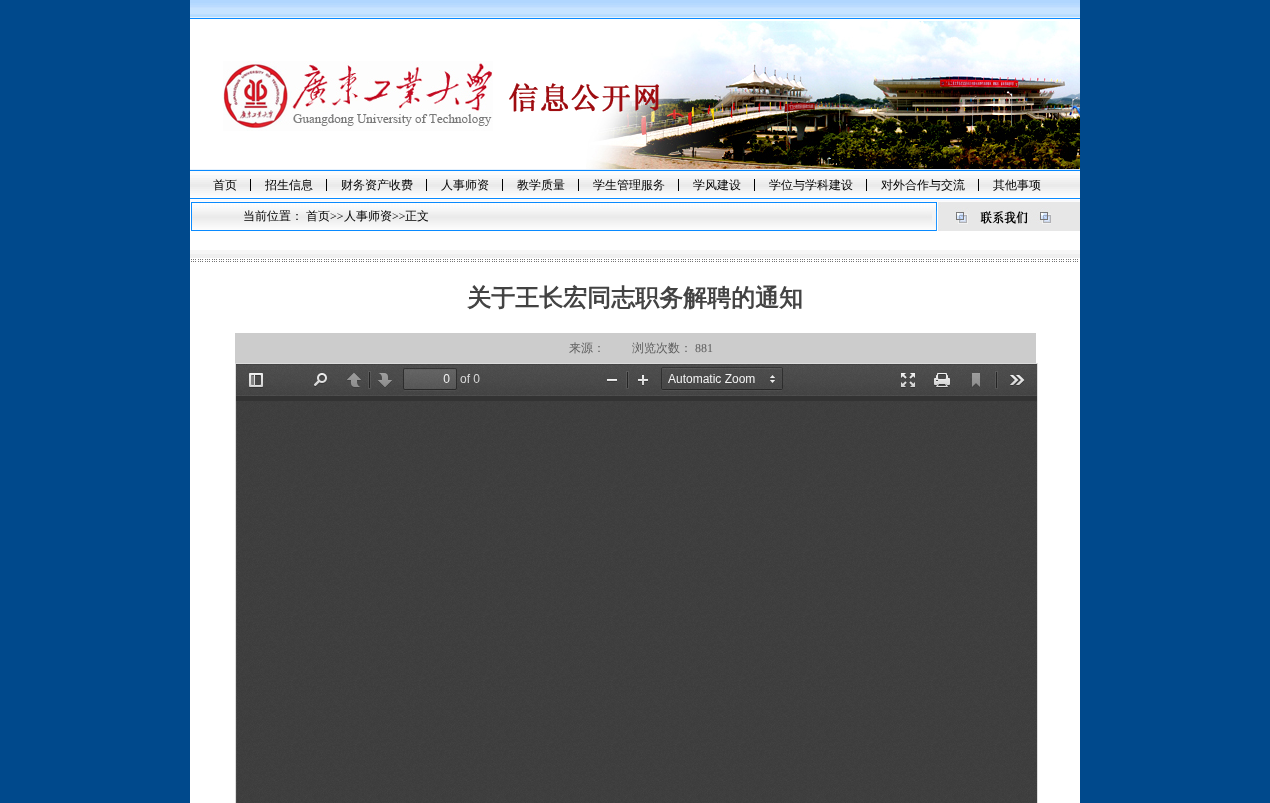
<?xml version="1.0" encoding="UTF-8"?>
<svg xmlns="http://www.w3.org/2000/svg" width="1270" height="803">
    <rect width="100%" height="100%" fill="#00498C"/>
    <rect x="190" y="19" width="890" height="784" fill="#FFFFFF"/>
    <image x="190" y="0" width="890" height="19" href="img_01.png"/>
    <image x="586" y="21" width="494" height="148" href="img_02.png"/>
    <image x="223" y="61" width="436" height="70" href="img_03.png"/>
    <image x="190" y="169" width="890" height="32" href="img_04.png"/>
    <rect x="250" y="179" width="1" height="12" fill="#000000"/>
    <text x="213" y="189" font-family="WenQuanYi Zen Hei" font-size="12" font-weight="500" fill="#000000">首页</text>
    <rect x="326" y="179" width="1" height="12" fill="#000000"/>
    <text x="265" y="189" font-family="WenQuanYi Zen Hei" font-size="12" font-weight="500" fill="#000000">招生信息</text>
    <rect x="426" y="179" width="1" height="12" fill="#000000"/>
    <text x="341" y="189" font-family="WenQuanYi Zen Hei" font-size="12" font-weight="500" fill="#000000">财务资产收费</text>
    <rect x="502" y="179" width="1" height="12" fill="#000000"/>
    <text x="441" y="189" font-family="WenQuanYi Zen Hei" font-size="12" font-weight="500" fill="#000000">人事师资</text>
    <rect x="578" y="179" width="1" height="12" fill="#000000"/>
    <text x="517" y="189" font-family="WenQuanYi Zen Hei" font-size="12" font-weight="500" fill="#000000">教学质量</text>
    <rect x="678" y="179" width="1" height="12" fill="#000000"/>
    <text x="593" y="189" font-family="WenQuanYi Zen Hei" font-size="12" font-weight="500" fill="#000000">学生管理服务</text>
    <rect x="754" y="179" width="1" height="12" fill="#000000"/>
    <text x="693" y="189" font-family="WenQuanYi Zen Hei" font-size="12" font-weight="500" fill="#000000">学风建设</text>
    <rect x="866" y="179" width="1" height="12" fill="#000000"/>
    <text x="769" y="189" font-family="WenQuanYi Zen Hei" font-size="12" font-weight="500" fill="#000000">学位与学科建设</text>
    <rect x="978" y="179" width="1" height="12" fill="#000000"/>
    <text x="881" y="189" font-family="WenQuanYi Zen Hei" font-size="12" font-weight="500" fill="#000000">对外合作与交流</text>
    <text x="993" y="189" font-family="WenQuanYi Zen Hei" font-size="12" font-weight="500" fill="#000000">其他事项</text>
    <image x="190" y="201" width="890" height="31" href="img_05.png"/>
    <text x="243" y="220" font-family="WenQuanYi Zen Hei" font-size="12" font-weight="500" fill="#000000">当前位置：</text>
    <text x="306" y="220" font-family="WenQuanYi Zen Hei" font-size="12" font-weight="500" fill="#000000">首页</text>
    <text x="330" y="220" font-family="Liberation Serif" font-size="12" fill="#000000">&gt;&gt;</text>
    <text x="344" y="220" font-family="WenQuanYi Zen Hei" font-size="12" font-weight="500" fill="#000000">人事师资</text>
    <text x="392" y="220" font-family="Liberation Serif" font-size="12" fill="#000000">&gt;&gt;</text>
    <text x="405" y="220" font-family="WenQuanYi Zen Hei" font-size="12" font-weight="500" fill="#000000">正文</text>
    <image x="954" y="207" width="97" height="17" href="img_06.png"/>
    <image x="190" y="250" width="890" height="12" href="img_07.png"/>
    <text x="467" y="306" font-family="WenQuanYi Zen Hei" font-size="24" font-weight="700" fill="#434343">关于王长宏同志职务解聘的通知</text>
    <rect x="235" y="333" width="801" height="30" fill="#CCCCCC"/>
    <text x="569" y="352" font-family="WenQuanYi Zen Hei" font-size="12" font-weight="500" fill="#606060">来源：</text>
    <text x="632" y="352" font-family="WenQuanYi Zen Hei" font-size="12" font-weight="500" fill="#606060">浏览次数：</text>
    <text x="695" y="352" font-family="Liberation Serif" font-size="12" fill="#606060">881</text>
    <rect x="235.5" y="363.5" width="802" height="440" fill="none" stroke="#DDDDDD"/>
    <image x="236" y="364" width="801" height="439" href="img_08.png"/>
</svg>
